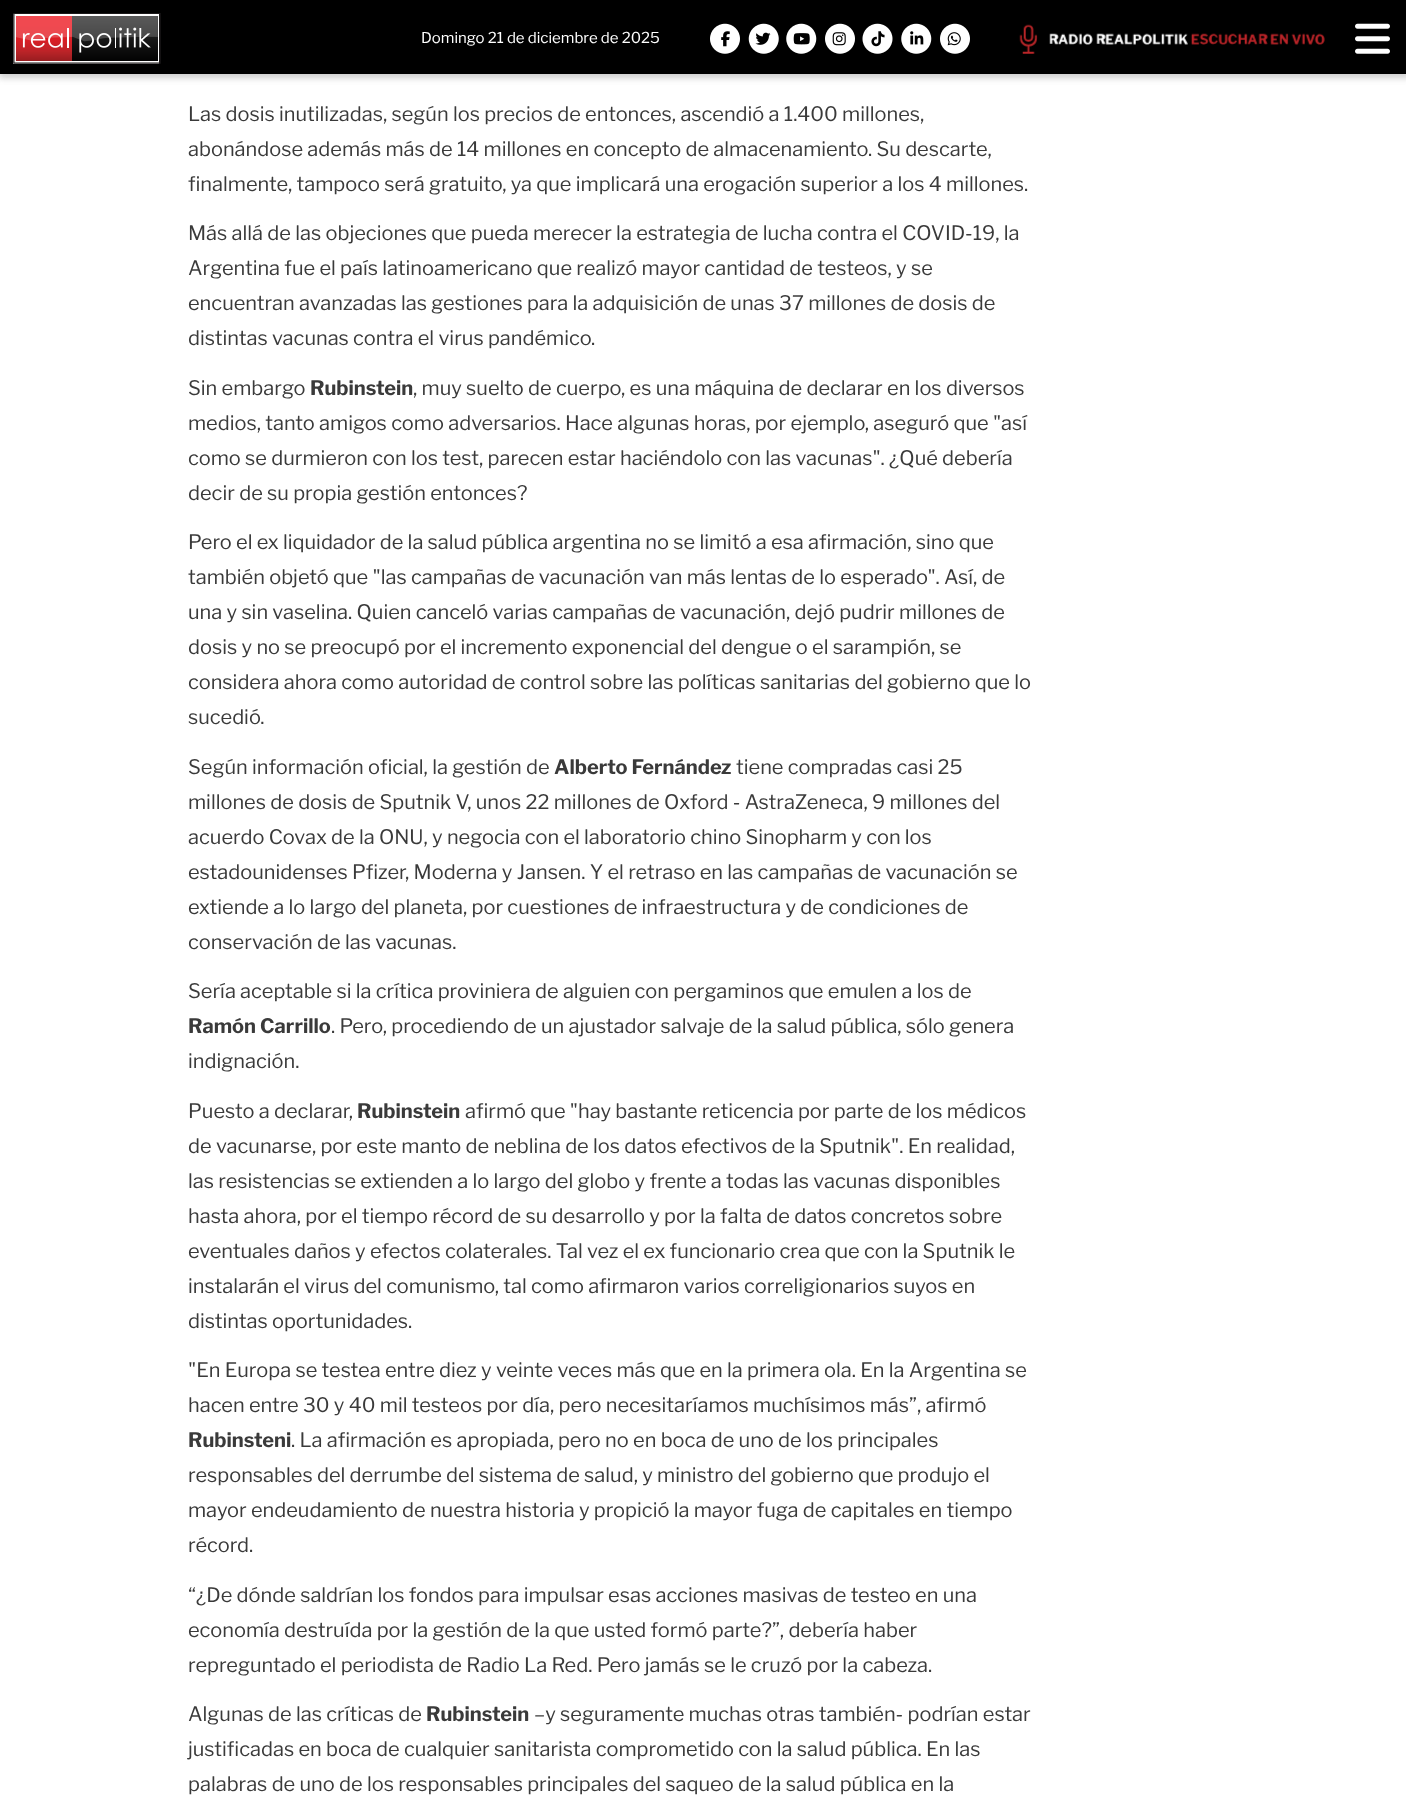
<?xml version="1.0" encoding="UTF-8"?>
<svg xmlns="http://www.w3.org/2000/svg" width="1406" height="1803">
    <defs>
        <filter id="blur1" x="-50%" y="-200%" width="200%" height="500%"><feGaussianBlur stdDeviation="3"/></filter>
    </defs>
    <rect width="100%" height="100%" fill="#FFFFFF"/>
    <rect x="-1" y="-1" width="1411" height="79" fill="#848484" fill-opacity="0.4" filter="url(#blur1)"/>
    <rect x="0" y="0" width="1406" height="74" fill="#000000"/>
    <image x="13" y="13" width="148" height="51" href="img_01.png"/>
    <text x="421" y="43" font-family="Libre Franklin" font-size="15" fill="#FFFFFF">Domingo 21 de diciembre de 2025</text>
    <image x="710" y="23" width="30" height="31" href="img_02.png"/>
    <image x="721" y="31" width="9" height="16" href="img_03.png"/>
    <image x="748" y="23" width="31" height="31" href="img_04.png"/>
    <image x="755" y="32" width="16" height="13" href="img_05.png"/>
    <image x="786" y="23" width="31" height="31" href="img_06.png"/>
    <image x="793" y="33" width="17" height="12" href="img_07.png"/>
    <image x="825" y="23" width="30" height="31" href="img_02.png"/>
    <image x="832" y="32" width="14" height="14" href="img_08.png"/>
    <image x="862" y="23" width="31" height="31" href="img_09.png"/>
    <image x="871" y="31" width="14" height="16" href="img_10.png"/>
    <image x="901" y="23" width="31" height="31" href="img_06.png"/>
    <image x="910" y="31" width="14" height="14" href="img_11.png"/>
    <image x="940" y="23" width="30" height="31" href="img_02.png"/>
    <image x="947" y="32" width="14" height="14" href="img_12.png"/>
    <image x="1019" y="24" width="306" height="30" href="img_13.png"/>
    <image x="1355" y="23" width="35" height="31" href="img_14.png"/>
    <text font-family="Libre Franklin" font-size="20" fill="#3A3A3A">
        <tspan x="188" y="121">Las dosis inutilizadas, según los precios de entonces, ascendió a 1.400 millones,</tspan>
        <tspan x="188" y="156">abonándose además más de 14 millones en concepto de almacenamiento. Su descarte,</tspan>
        <tspan x="188" y="191">finalmente, tampoco será gratuito, ya que implicará una erogación superior a los 4 millones.</tspan>
    </text>
    <text font-family="Libre Franklin" font-size="20" fill="#3A3A3A">
        <tspan x="188" y="240">Más allá de las objeciones que pueda merecer la estrategia de lucha contra el COVID-19, la</tspan>
        <tspan x="188" y="275">Argentina fue el país latinoamericano que realizó mayor cantidad de testeos, y se</tspan>
        <tspan x="188" y="310">encuentran avanzadas las gestiones para la adquisición de unas 37 millones de dosis de</tspan>
        <tspan x="188" y="345">distintas vacunas contra el virus pandémico.</tspan>
    </text>
    <text x="188" y="395" font-family="Libre Franklin" font-size="20" fill="#3A3A3A">Sin embargo</text>
    <text x="310" y="395" font-family="Libre Franklin" font-size="20" font-weight="700" fill="#3A3A3A">Rubinstein</text>
    <text x="413" y="395" font-family="Libre Franklin" font-size="20" fill="#3A3A3A">, muy suelto de cuerpo, es una máquina de declarar en los diversos</text>
    <text font-family="Libre Franklin" font-size="20" fill="#3A3A3A">
        <tspan x="188" y="430">medios, tanto amigos como adversarios. Hace algunas horas, por ejemplo, aseguró que "así</tspan>
        <tspan x="188" y="465">como se durmieron con los test, parecen estar haciéndolo con las vacunas". ¿Qué debería</tspan>
        <tspan x="188" y="500">decir de su propia gestión entonces?</tspan>
    </text>
    <text font-family="Libre Franklin" font-size="20" fill="#3A3A3A">
        <tspan x="188" y="549">Pero el ex liquidador de la salud pública argentina no se limitó a esa afirmación, sino que</tspan>
        <tspan x="188" y="584">también objetó que "las campañas de vacunación van más lentas de lo esperado". Así, de</tspan>
        <tspan x="188" y="619">una y sin vaselina. Quien canceló varias campañas de vacunación, dejó pudrir millones de</tspan>
        <tspan x="188" y="654">dosis y no se preocupó por el incremento exponencial del dengue o el sarampión, se</tspan>
        <tspan x="188" y="689">considera ahora como autoridad de control sobre las políticas sanitarias del gobierno que lo</tspan>
        <tspan x="188" y="724">sucedió.</tspan>
    </text>
    <text x="188" y="774" font-family="Libre Franklin" font-size="20" fill="#3A3A3A">Según información oficial, la gestión de</text>
    <text x="554" y="774" font-family="Libre Franklin" font-size="20" font-weight="700" fill="#3A3A3A">Alberto Fernández</text>
    <text x="736" y="774" font-family="Libre Franklin" font-size="20" fill="#3A3A3A">tiene compradas casi 25</text>
    <text font-family="Libre Franklin" font-size="20" fill="#3A3A3A">
        <tspan x="188" y="809">millones de dosis de Sputnik V, unos 22 millones de Oxford - AstraZeneca, 9 millones del</tspan>
        <tspan x="188" y="844">acuerdo Covax de la ONU, y negocia con el laboratorio chino Sinopharm y con los</tspan>
        <tspan x="188" y="879">estadounidenses Pfizer, Moderna y Jansen. Y el retraso en las campañas de vacunación se</tspan>
        <tspan x="188" y="914">extiende a lo largo del planeta, por cuestiones de infraestructura y de condiciones de</tspan>
        <tspan x="188" y="949">conservación de las vacunas.</tspan>
    </text>
    <text x="188" y="998" font-family="Libre Franklin" font-size="20" fill="#3A3A3A">Sería aceptable si la crítica proviniera de alguien con pergaminos que emulen a los de</text>
    <text x="188" y="1033" font-family="Libre Franklin" font-size="20" font-weight="700" fill="#3A3A3A">Ramón Carrillo</text>
    <text x="331" y="1033" font-family="Libre Franklin" font-size="20" fill="#3A3A3A">. Pero, procediendo de un ajustador salvaje de la salud pública, sólo genera</text>
    <text x="188" y="1068" font-family="Libre Franklin" font-size="20" fill="#3A3A3A">indignación.</text>
    <text x="188" y="1118" font-family="Libre Franklin" font-size="20" fill="#3A3A3A">Puesto a declarar,</text>
    <text x="357" y="1118" font-family="Libre Franklin" font-size="20" font-weight="700" fill="#3A3A3A">Rubinstein</text>
    <text x="465" y="1118" font-family="Libre Franklin" font-size="20" fill="#3A3A3A">afirmó que "hay bastante reticencia por parte de los médicos</text>
    <text font-family="Libre Franklin" font-size="20" fill="#3A3A3A">
        <tspan x="188" y="1153">de vacunarse, por este manto de neblina de los datos efectivos de la Sputnik". En realidad,</tspan>
        <tspan x="188" y="1188">las resistencias se extienden a lo largo del globo y frente a todas las vacunas disponibles</tspan>
        <tspan x="188" y="1223">hasta ahora, por el tiempo récord de su desarrollo y por la falta de datos concretos sobre</tspan>
        <tspan x="188" y="1258">eventuales daños y efectos colaterales. Tal vez el ex funcionario crea que con la Sputnik le</tspan>
        <tspan x="188" y="1293">instalarán el virus del comunismo, tal como afirmaron varios correligionarios suyos en</tspan>
        <tspan x="188" y="1328">distintas oportunidades.</tspan>
    </text>
    <text font-family="Libre Franklin" font-size="20" fill="#3A3A3A">
        <tspan x="188" y="1377">"En Europa se testea entre diez y veinte veces más que en la primera ola. En la Argentina se</tspan>
        <tspan x="188" y="1412">hacen entre 30 y 40 mil testeos por día, pero necesitaríamos muchísimos más”, afirmó</tspan>
    </text>
    <text x="188" y="1447" font-family="Libre Franklin" font-size="20" font-weight="700" fill="#3A3A3A">Rubinsteni</text>
    <text x="291" y="1447" font-family="Libre Franklin" font-size="20" fill="#3A3A3A">. La afirmación es apropiada, pero no en boca de uno de los principales</text>
    <text font-family="Libre Franklin" font-size="20" fill="#3A3A3A">
        <tspan x="188" y="1482">responsables del derrumbe del sistema de salud, y ministro del gobierno que produjo el</tspan>
        <tspan x="188" y="1517">mayor endeudamiento de nuestra historia y propició la mayor fuga de capitales en tiempo</tspan>
        <tspan x="188" y="1552">récord.</tspan>
    </text>
    <text font-family="Libre Franklin" font-size="20" fill="#3A3A3A">
        <tspan x="188" y="1602">“¿De dónde saldrían los fondos para impulsar esas acciones masivas de testeo en una</tspan>
        <tspan x="188" y="1637">economía destruída por la gestión de la que usted formó parte?”, debería haber</tspan>
        <tspan x="188" y="1672">repreguntado el periodista de Radio La Red. Pero jamás se le cruzó por la cabeza.</tspan>
    </text>
    <text x="188" y="1721" font-family="Libre Franklin" font-size="20" fill="#3A3A3A">Algunas de las críticas de</text>
    <text x="426" y="1721" font-family="Libre Franklin" font-size="20" font-weight="700" fill="#3A3A3A">Rubinstein</text>
    <text x="534" y="1721" font-family="Libre Franklin" font-size="20" fill="#3A3A3A">–y seguramente muchas otras también- podrían estar</text>
    <text font-family="Libre Franklin" font-size="20" fill="#3A3A3A">
        <tspan x="188" y="1756">justificadas en boca de cualquier sanitarista comprometido con la salud pública. En las</tspan>
        <tspan x="188" y="1791">palabras de uno de los responsables principales del saqueo de la salud pública en la</tspan>
    </text>
</svg>
